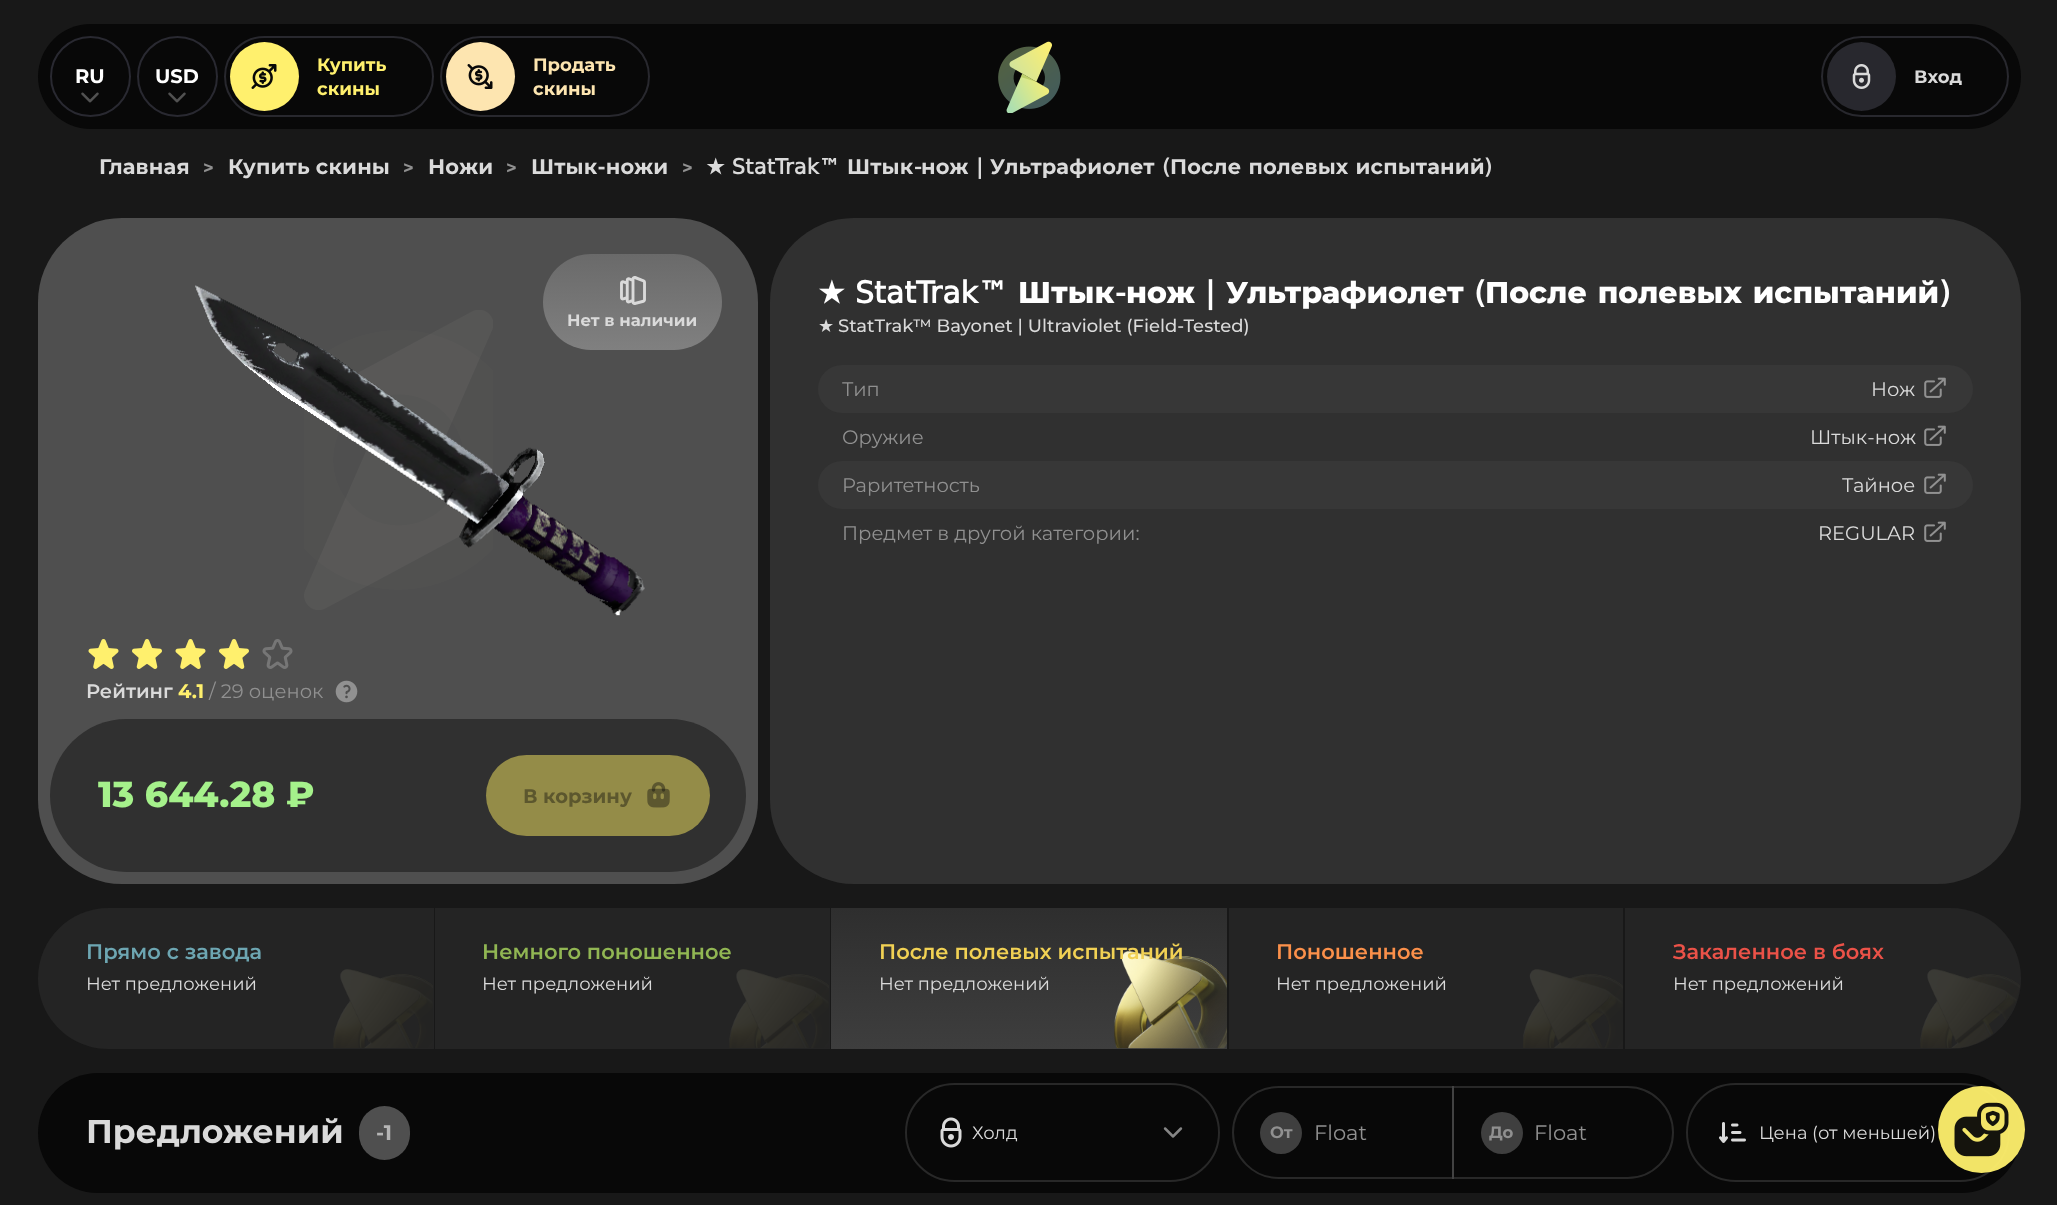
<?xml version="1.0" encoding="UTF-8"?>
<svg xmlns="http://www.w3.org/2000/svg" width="2057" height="1205">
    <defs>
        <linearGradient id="g1" gradientUnits="userSpaceOnUse" x1="632" y1="254" x2="632" y2="350"><stop offset="0" stop-color="#6A6A6A"/><stop offset="1" stop-color="#808080"/></linearGradient>
        <linearGradient id="g2" gradientUnits="userSpaceOnUse" x1="1029" y1="908" x2="1029" y2="1049"><stop offset="0" stop-color="#2E2E2E"/><stop offset="1" stop-color="#3E3E3E"/></linearGradient>
    </defs>
    <rect width="100%" height="100%" fill="#181818"/>
    <rect x="38" y="24" width="1983" height="105" rx="52.5" fill="#080808"/>
    <circle cx="90.5" cy="76.5" r="39.5" fill="none" stroke="#292931" stroke-width="2"/>
    <text x="75" y="83" font-family="Montserrat" font-size="19.5" font-weight="700" fill="#FFFFFF">RU</text>
    <image x="81" y="92" width="18" height="11" href="img_01.png"/>
    <circle cx="177.5" cy="76.5" r="39.5" fill="none" stroke="#292931" stroke-width="2"/>
    <text x="155" y="83" font-family="Montserrat" font-size="19.5" font-weight="700" fill="#FFFFFF">USD</text>
    <image x="168" y="92" width="18" height="11" href="img_01.png"/>
    <rect x="225" y="37" width="208" height="79" rx="39.5" fill="none" stroke="#28282E" stroke-width="2"/>
    <circle cx="264.5" cy="76.5" r="34.5" fill="#FFF06D"/>
    <image x="251" y="64" width="26" height="25" href="img_02.png"/>
    <text font-family="Montserrat" font-size="18" font-weight="700" fill="#FFF06D">
        <tspan x="317" y="71">Купить</tspan>
        <tspan x="317" y="95">скины</tspan>
    </text>
    <rect x="441" y="37" width="208" height="79" rx="39.5" fill="none" stroke="#28282E" stroke-width="2"/>
    <circle cx="480.5" cy="76.5" r="34.5" fill="#FDE5B0"/>
    <image x="467" y="64" width="26" height="25" href="img_03.png"/>
    <text font-family="Montserrat" font-size="18" font-weight="700" fill="#FDE5B0">
        <tspan x="533" y="71">Продать</tspan>
        <tspan x="533" y="95">скины</tspan>
    </text>
    <image x="998" y="41" width="63" height="72" href="img_04.png"/>
    <rect x="1822" y="37" width="186" height="79" rx="39.5" fill="none" stroke="#28282E" stroke-width="2"/>
    <circle cx="1861.5" cy="76.5" r="34.5" fill="#28282E"/>
    <image x="1852" y="64" width="19" height="25" href="img_05.png"/>
    <text x="1914" y="83" font-family="Montserrat" font-size="18" font-weight="700" fill="#DADADA">Вход</text>
    <text x="99" y="174" font-family="Montserrat" font-size="21" font-weight="700" letter-spacing="0.15" fill="#DADADA">Главная</text>
    <text x="203" y="174" font-family="Montserrat" font-size="18" font-weight="700" letter-spacing="0.15" fill="#909090">&gt;</text>
    <text x="228" y="174" font-family="Montserrat" font-size="21" font-weight="700" letter-spacing="0.15" fill="#DADADA">Купить скины</text>
    <text x="403" y="174" font-family="Montserrat" font-size="18" font-weight="700" letter-spacing="0.15" fill="#909090">&gt;</text>
    <text x="428" y="174" font-family="Montserrat" font-size="21" font-weight="700" letter-spacing="0.15" fill="#DADADA">Ножи</text>
    <text x="506" y="174" font-family="Montserrat" font-size="18" font-weight="700" letter-spacing="0.15" fill="#909090">&gt;</text>
    <text x="531" y="174" font-family="Montserrat" font-size="21" font-weight="700" letter-spacing="0.15" fill="#DADADA">Штык-ножи</text>
    <text x="682" y="174" font-family="Montserrat" font-size="18" font-weight="700" letter-spacing="0.15" fill="#909090">&gt;</text>
    <text x="706" y="174" font-family="DejaVu Sans" font-size="21" font-weight="700" letter-spacing="0.15" fill="#DADADA">★ StatTrak™</text>
    <text x="847" y="174" font-family="Montserrat" font-size="21" font-weight="700" letter-spacing="0.15" fill="#DADADA">Штык</text>
    <text x="914" y="174" font-family="DejaVu Sans" font-size="21" font-weight="700" letter-spacing="0.15" fill="#DADADA">-</text>
    <text x="921" y="174" font-family="Montserrat" font-size="21" font-weight="700" letter-spacing="0.15" fill="#DADADA">нож</text>
    <text x="976" y="174" font-family="DejaVu Sans" font-size="21" font-weight="700" letter-spacing="0.15" fill="#DADADA">|</text>
    <text x="990" y="174" font-family="Montserrat" font-size="21" font-weight="700" letter-spacing="0.15" fill="#DADADA">Ультрафиолет</text>
    <text x="1162" y="174" font-family="DejaVu Sans" font-size="21" font-weight="700" letter-spacing="0.15" fill="#DADADA">(</text>
    <text x="1170" y="174" word-spacing="1" font-family="Montserrat" font-size="21" font-weight="700" letter-spacing="0.15" fill="#DADADA">После полевых испытаний</text>
    <text x="1484" y="174" font-family="DejaVu Sans" font-size="21" font-weight="700" letter-spacing="0.15" fill="#DADADA">)</text>
    <rect x="38" y="218" width="720" height="666" rx="84" fill="#4F4F4F"/>
    <image x="304" y="310" width="189" height="300" href="img_07.png"/>
    <image x="195" y="285" width="450" height="331" href="img_06.png"/>
    <rect x="543" y="254" width="179" height="96" rx="48" fill="url(#g1)"/>
    <image x="620" y="276" width="26" height="29" href="img_08.png"/>
    <text x="567" y="326" font-family="Montserrat" font-size="16.5" font-weight="700" fill="#DADADA">Нет в наличии</text>
    <image x="88" y="639" width="31" height="30" href="img_09.png"/>
    <image x="132" y="639" width="30" height="30" href="img_10.png"/>
    <image x="175" y="639" width="31" height="30" href="img_09.png"/>
    <image x="219" y="639" width="30" height="30" href="img_10.png"/>
    <image x="262" y="639" width="31" height="30" href="img_11.png"/>
    <text x="86" y="698" font-family="Montserrat" font-size="19.5" font-weight="600" fill="#DADADA">Рейтинг</text>
    <text x="178" y="698" font-family="Montserrat" font-size="19.5" font-weight="700" fill="#FFF06D">4.1</text>
    <text x="209" y="698" font-family="Montserrat" font-size="19.5" fill="#909090">/ 29 оценок</text>
    <image x="335" y="680" width="23" height="23" href="img_12.png"/>
    <rect x="50" y="719" width="696" height="153" rx="76.5" fill="#303030"/>
    <text x="98" y="807" font-family="Montserrat" font-size="36" font-weight="800" fill="#A5F18B">13 644.28 ₽</text>
    <rect x="486" y="755" width="224" height="81" rx="40.5" fill="#948C48"/>
    <text x="523" y="803" font-family="Montserrat" font-size="19.5" font-weight="700" fill="#5C572E">В корзину</text>
    <image x="647" y="782" width="23" height="26" href="img_13.png"/>
    <rect x="770" y="218" width="1251" height="666" rx="84" fill="#303030"/>
    <text x="818" y="303" font-family="DejaVu Sans" font-size="30" font-weight="700" fill="#FFFFFF">★</text>
    <text x="855" y="303" font-family="DejaVu Sans" font-size="30" font-weight="700" fill="#FFFFFF">StatTrak™</text>
    <text x="1018" y="303" font-family="Montserrat" font-size="30" font-weight="800" fill="#FFFFFF">Штык</text>
    <text x="1115" y="303" font-family="DejaVu Sans" font-size="30" font-weight="700" fill="#FFFFFF">-</text>
    <text x="1126" y="303" font-family="Montserrat" font-size="30" font-weight="800" fill="#FFFFFF">нож</text>
    <text x="1205" y="303" font-family="DejaVu Sans" font-size="30" font-weight="700" fill="#FFFFFF">|</text>
    <text x="1226" y="303" font-family="Montserrat" font-size="30" font-weight="800" fill="#FFFFFF">Ультрафиолет</text>
    <text x="1474" y="303" font-family="DejaVu Sans" font-size="30" font-weight="700" fill="#FFFFFF">(</text>
    <text x="1485" y="303" word-spacing="2" font-family="Montserrat" font-size="30" font-weight="800" fill="#FFFFFF">После полевых испытаний</text>
    <text x="1939" y="303" font-family="DejaVu Sans" font-size="30" font-weight="700" fill="#FFFFFF">)</text>
    <text x="818" y="332" font-family="DejaVu Sans" font-size="18" fill="#DADADA">★</text>
    <text x="838" y="332" font-family="Montserrat" font-size="18" font-weight="500" fill="#DADADA">StatTrak™ Bayonet | Ultraviolet (Field-Tested)</text>
    <rect x="818" y="365" width="1155" height="48" rx="24" fill="#373737"/>
    <text x="842" y="396" font-family="Montserrat" font-size="19.5" fill="#909090">Тип</text>
    <text x="1871" y="396" font-family="Montserrat" font-size="19.5" fill="#DADADA">Нож</text>
    <image x="1924" y="377" width="22" height="21" href="img_14.png"/>
    <text x="842" y="444" font-family="Montserrat" font-size="19.5" fill="#909090">Оружие</text>
    <text x="1810" y="444" font-family="Montserrat" font-size="19.5" fill="#DADADA">Штык-нож</text>
    <image x="1924" y="425" width="22" height="21" href="img_15.png"/>
    <rect x="818" y="461" width="1155" height="48" rx="24" fill="#373737"/>
    <text x="842" y="492" font-family="Montserrat" font-size="19.5" fill="#909090">Раритетность</text>
    <text x="1842" y="492" font-family="Montserrat" font-size="19.5" fill="#DADADA">Тайное</text>
    <image x="1924" y="473" width="22" height="21" href="img_14.png"/>
    <text x="842" y="540" font-family="Montserrat" font-size="19.5" fill="#909090">Предмет в другой категории:</text>
    <text x="1818" y="540" font-family="Montserrat" font-size="19.5" fill="#DADADA">REGULAR</text>
    <image x="1924" y="521" width="22" height="21" href="img_15.png"/>
    <path d="M 108.5 908 H 434 V 1049 H 108.5 C 69.5 1049 38 1017.5 38 978.5 C 38 939.5 69.5 908 108.5 908 Z" fill="#242424"/>
    <text x="86" y="959" font-family="Montserrat" font-size="21" font-weight="600" fill="#6DA6B2">Прямо с завода</text>
    <text x="86" y="990" font-family="Montserrat" font-size="18" fill="#DADADA">Нет предложений</text>
    <image x="333" y="969" width="100" height="79" href="img_16.png"/>
    <rect x="435" y="908" width="395" height="141" fill="#242424"/>
    <text x="482" y="959" font-family="Montserrat" font-size="21" font-weight="600" fill="#91B653">Немного поношенное</text>
    <text x="482" y="990" font-family="Montserrat" font-size="18" fill="#DADADA">Нет предложений</text>
    <image x="729" y="969" width="100" height="79" href="img_17.png"/>
    <rect x="831" y="908" width="396" height="141" fill="url(#g2)"/>
    <image x="1114" y="951" width="113" height="98" href="img_18.png"/>
    <text x="879" y="959" font-family="Montserrat" font-size="21" font-weight="600" fill="#F1D154">После полевых испытаний</text>
    <text x="879" y="990" font-family="Montserrat" font-size="18" fill="#DADADA">Нет предложений</text>
    <rect x="1229" y="908" width="394" height="141" fill="#242424"/>
    <text x="1276" y="959" font-family="Montserrat" font-size="21" font-weight="600" fill="#FB904A">Поношенное</text>
    <text x="1276" y="990" font-family="Montserrat" font-size="18" fill="#DADADA">Нет предложений</text>
    <image x="1523" y="969" width="100" height="79" href="img_19.png"/>
    <path d="M 1625 908 H 1950.5 C 1989.5 908 2021 939.5 2021 978.5 C 2021 1017.5 1989.5 1049 1950.5 1049 H 1625 Z" fill="#242424"/>
    <text x="1673" y="959" font-family="Montserrat" font-size="21" font-weight="600" fill="#EB5248">Закаленное в боях</text>
    <text x="1673" y="990" font-family="Montserrat" font-size="18" fill="#DADADA">Нет предложений</text>
    <image x="1920" y="969" width="100" height="79" href="img_20.png"/>
    <rect x="38" y="1073" width="1983" height="120" rx="60" fill="#080808"/>
    <text x="86" y="1143" font-family="Montserrat" font-size="33" font-weight="700" fill="#DADADA">Предложений</text>
    <rect x="359" y="1106" width="51" height="54" rx="25.5" fill="#4F4F4F"/>
    <text x="376" y="1140" font-family="Montserrat" font-size="21" font-weight="700" fill="#B5B5B5">-1</text>
    <rect x="906" y="1084" width="313" height="97" rx="48.5" fill="none" stroke="#282828" stroke-width="2"/>
    <image x="940" y="1117" width="22" height="31" href="img_21.png"/>
    <text x="972" y="1139" font-family="Montserrat" font-size="18" fill="#DADADA">Холд</text>
    <image x="1163" y="1127" width="20" height="11" href="img_22.png"/>
    <circle cx="1281" cy="1133" r="21" fill="#3F3F3F"/>
    <path d="M 1278.5 1087 H 1453 V 1178 H 1278.5 C 1253.5 1178 1233 1157.5 1233 1132.5 C 1233 1107.5 1253.5 1087 1278.5 1087 Z" fill="none" stroke="#282828" stroke-width="2"/>
    <text x="1270" y="1138" font-family="Montserrat" font-size="16.5" font-weight="700" fill="#909090">От</text>
    <text x="1314" y="1140" font-family="Montserrat" font-size="21" fill="#909090">Float</text>
    <circle cx="1502" cy="1133" r="21" fill="#3F3F3F"/>
    <path d="M 1453 1087 H 1627.5 C 1652.5 1087 1673 1107.5 1673 1132.5 C 1673 1157.5 1652.5 1178 1627.5 1178 H 1453 Z" fill="none" stroke="#A8A8A8" stroke-opacity="0.2" stroke-width="2"/>
    <text x="1489" y="1138" font-family="Montserrat" font-size="16.5" font-weight="700" fill="#909090">До</text>
    <text x="1534" y="1140" font-family="Montserrat" font-size="21" fill="#909090">Float</text>
    <rect x="1687" y="1084" width="322" height="97" rx="48.5" fill="none" stroke="#282828" stroke-width="2"/>
    <image x="1719" y="1122" width="27" height="21" href="img_23.png"/>
    <text x="1759" y="1139" font-family="Montserrat" font-size="18" fill="#DADADA">Цена (от меньшей)</text>
    <image x="1954" y="1127" width="19" height="11" href="img_24.png"/>
    <circle cx="1981.5" cy="1129.5" r="43.5" fill="#FFF06D" fill-opacity="0.95"/>
    <image x="1954" y="1102" width="55" height="55" href="img_25.png"/>
</svg>
